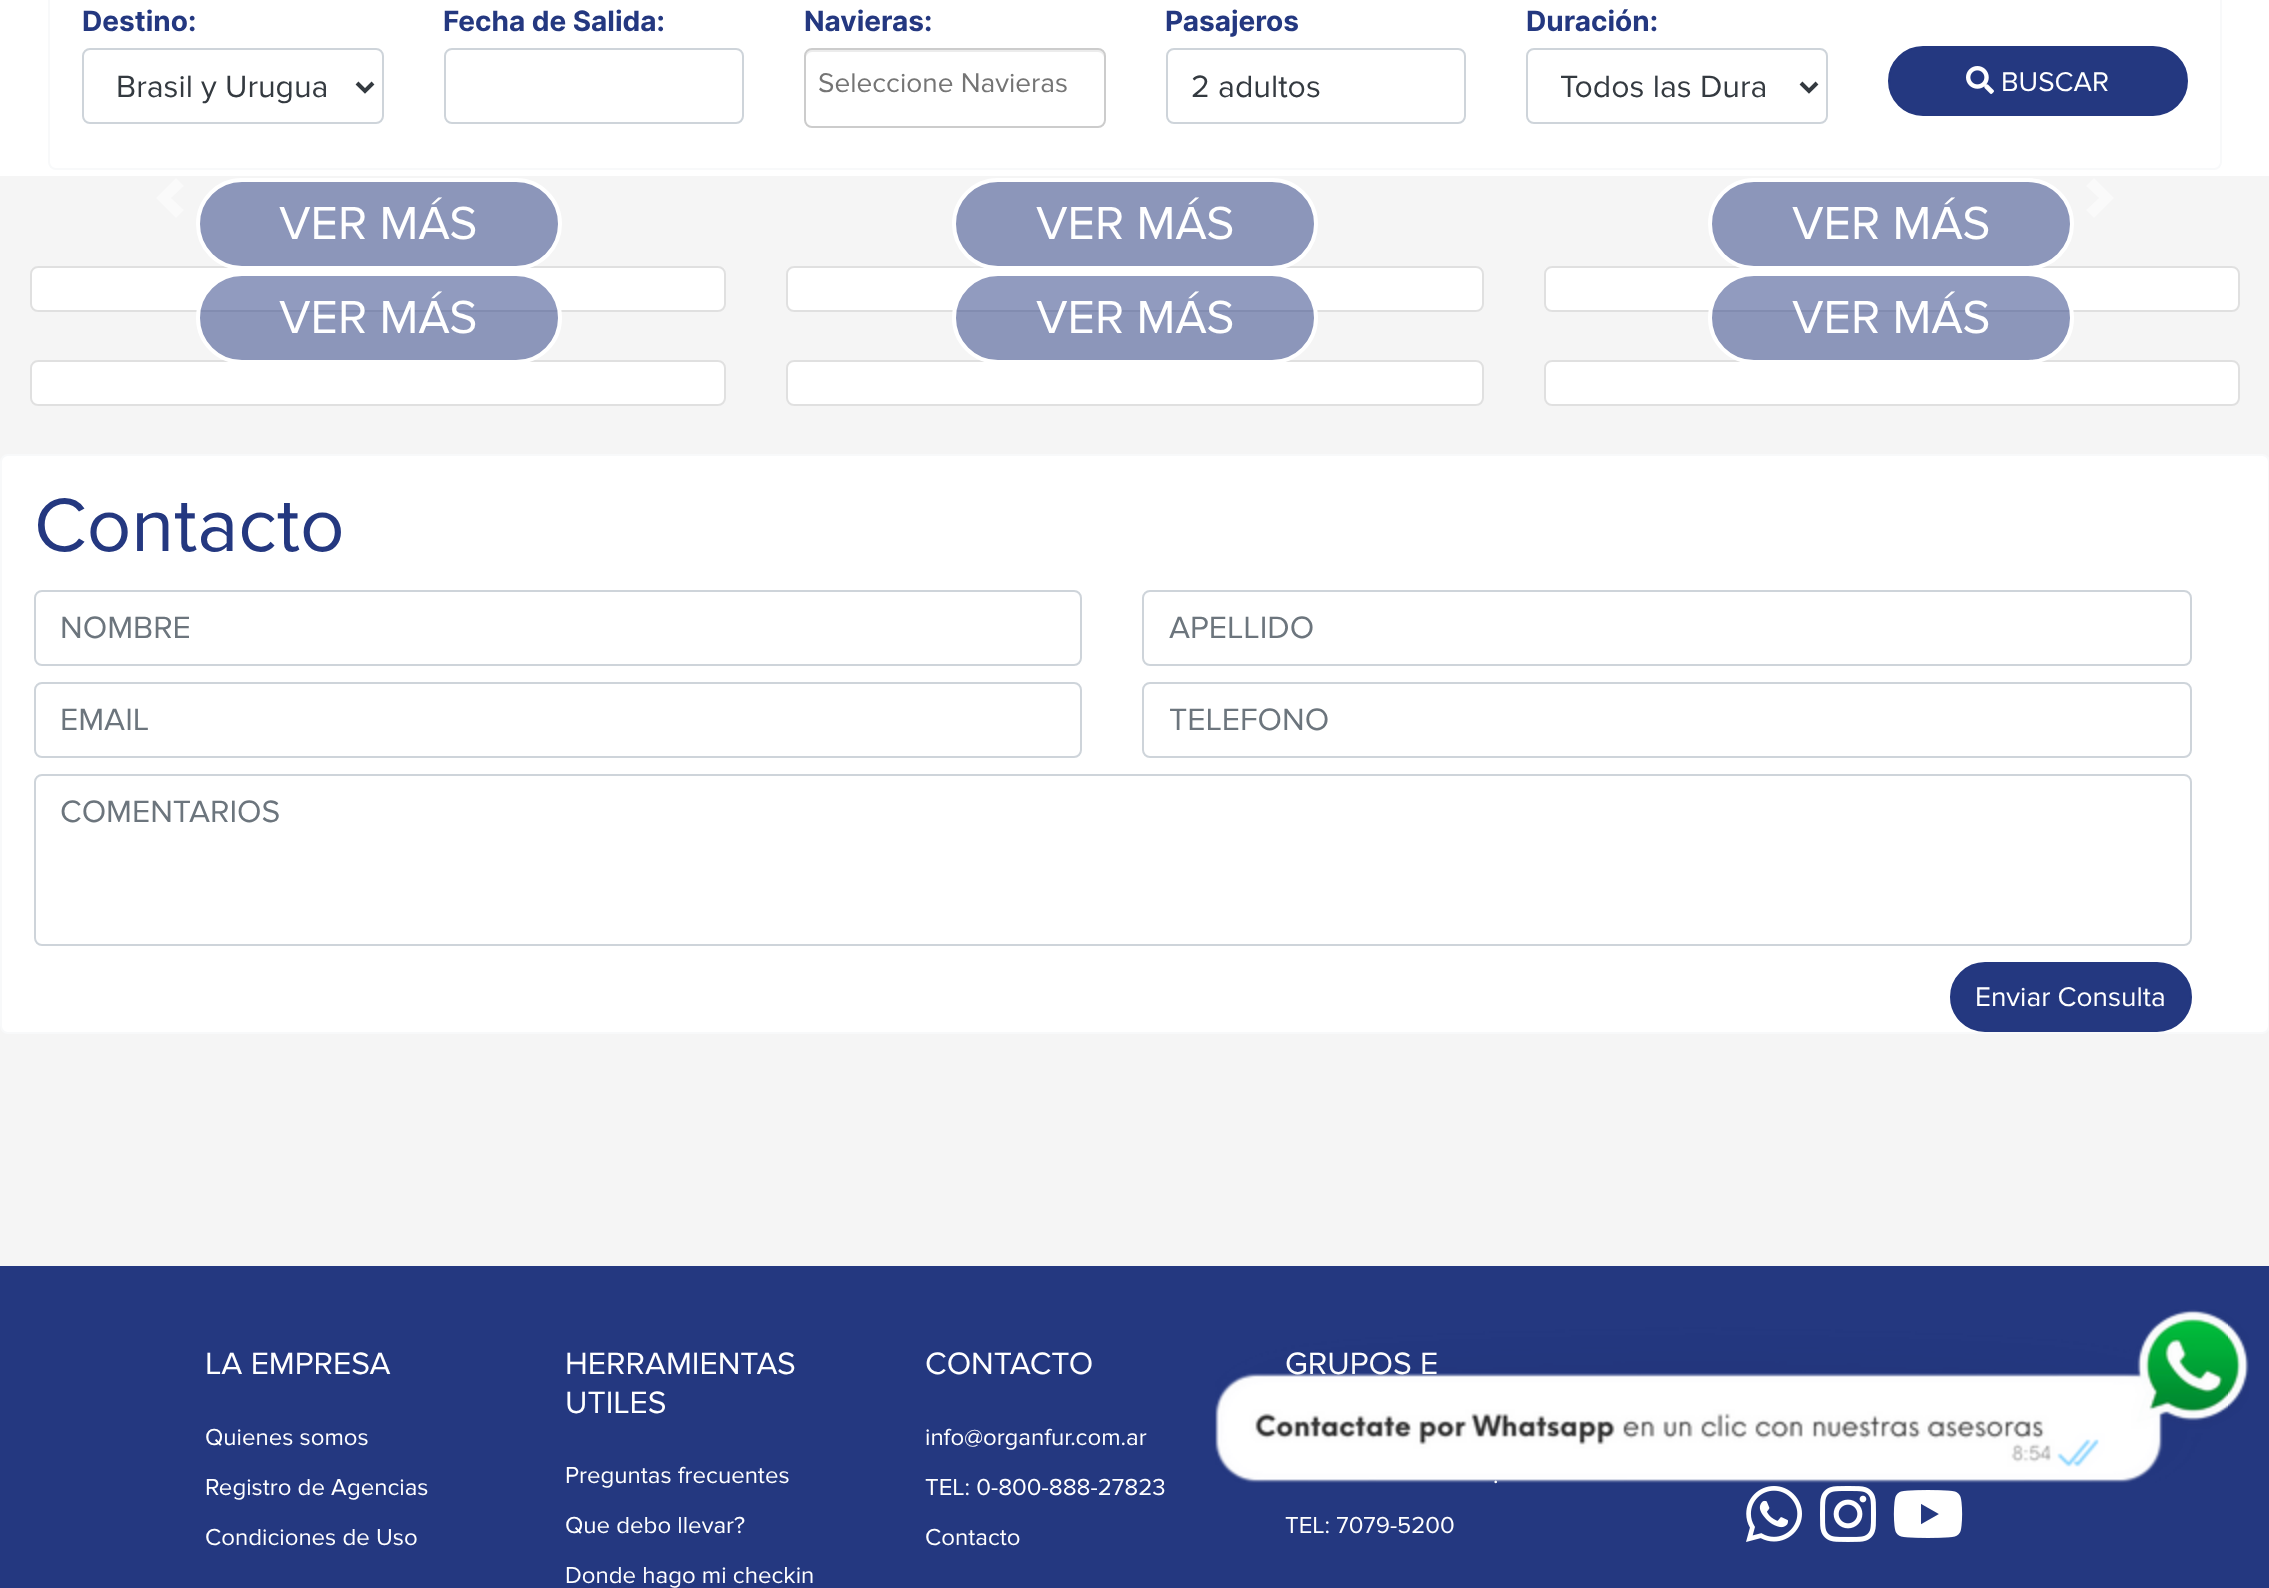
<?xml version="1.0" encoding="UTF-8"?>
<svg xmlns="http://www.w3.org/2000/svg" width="2269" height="1588">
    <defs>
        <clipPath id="clip1"><rect x="116" y="64" width="210" height="44"/></clipPath>
    </defs>
    <rect width="100%" height="100%" fill="#F5F5F5"/>
    <rect x="0" y="0" width="2269" height="176" fill="#FFFFFF"/>
    <rect x="49" y="-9" width="2172" height="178" rx="7" fill="none" stroke="#F8F9FA" stroke-width="2"/>
    <text x="82" y="31" font-family="Inter" font-size="28" font-weight="700" fill="#243880">Destino:</text>
    <rect x="83" y="49" width="300" height="74" rx="7" fill="none" stroke="#CED4DA" stroke-width="2"/>
    <path d="M 357 83 L 365 91 L 373 83" fill="none" stroke="#343A40" stroke-width="4"/>
    <g clip-path="url(#clip1)">
        <text x="116" y="97" font-family="Proxima Nova" font-size="32" fill="#343A40">Brasil y Urugua</text>
    </g>
    <text x="443" y="31" font-family="Inter" font-size="28" font-weight="700" fill="#243880">Fecha de Salida:</text>
    <rect x="445" y="49" width="298" height="74" rx="7" fill="none" stroke="#CED4DA" stroke-width="2"/>
    <text x="804" y="31" font-family="Inter" font-size="28" font-weight="700" fill="#243880">Navieras:</text>
    <path d="M 812 52 H 1098 C 1101 52 1104 55 1104 58 V 56 C 1104 53 1101 50 1098 50 H 812 C 809 50 806 53 806 56 V 58 C 806 55 809 52 812 52 Z" fill="#ECECEC"/>
    <rect x="805" y="49" width="300" height="78" rx="7" fill="none" stroke="#CCCCCC" stroke-width="2"/>
    <text x="818" y="92" font-family="Proxima Nova" font-size="28" fill="#757575">Seleccione Navieras</text>
    <text x="1165" y="31" font-family="Inter" font-size="28" font-weight="700" fill="#243880">Pasajeros</text>
    <rect x="1167" y="49" width="298" height="74" rx="7" fill="none" stroke="#CED4DA" stroke-width="2"/>
    <text x="1191" y="97" font-family="Proxima Nova" font-size="32" fill="#343A40">2 adultos</text>
    <text x="1526" y="31" font-family="Inter" font-size="28" font-weight="700" fill="#243880">Duración:</text>
    <rect x="1527" y="49" width="300" height="74" rx="7" fill="none" stroke="#CED4DA" stroke-width="2"/>
    <path d="M 1801 83 L 1809 91 L 1817 83" fill="none" stroke="#343A40" stroke-width="4"/>
    <text x="1560" y="97" font-family="Proxima Nova" font-size="32" fill="#343A40">Todos las Dura</text>
    <rect x="1889" y="47" width="298" height="68" rx="34" fill="#243880" stroke="#243880" stroke-width="2"/>
    <image x="1966" y="66" width="28" height="28" href="img_01.png"/>
    <text x="2001" y="91" font-family="Proxima Nova" font-size="28" fill="#FFFFFF">BUSCAR</text>
    <path d="M 176 178 L 156 198 L 176 218 L 184 210 L 171 198 L 184 186 Z" fill="#FAFAFA"/>
    <path d="M 2094 178 L 2086 186 L 2099 198 L 2086 210 L 2094 218 L 2114 198 Z" fill="#FAFAFA"/>
    <rect x="30" y="266" width="696" height="46" rx="8" fill="#FFFFFF"/>
    <rect x="31" y="267" width="694" height="44" rx="7" fill="none" stroke="#000000" stroke-opacity="0.12" stroke-width="2"/>
    <rect x="198" y="180" width="362" height="88" rx="44" fill="#243880" fill-opacity="0.5" stroke="#FFFFFF" stroke-width="4"/>
    <text x="279" y="239" font-family="Proxima Nova" font-size="48" fill="#FFFFFF">VER MÁS</text>
    <rect x="786" y="266" width="698" height="46" rx="8" fill="#FFFFFF"/>
    <rect x="787" y="267" width="696" height="44" rx="7" fill="none" stroke="#000000" stroke-opacity="0.12" stroke-width="2"/>
    <rect x="954" y="180" width="362" height="88" rx="44" fill="#243880" fill-opacity="0.5" stroke="#FFFFFF" stroke-width="4"/>
    <text x="1036" y="239" font-family="Proxima Nova" font-size="48" fill="#FFFFFF">VER MÁS</text>
    <rect x="1544" y="266" width="696" height="46" rx="8" fill="#FFFFFF"/>
    <rect x="1545" y="267" width="694" height="44" rx="7" fill="none" stroke="#000000" stroke-opacity="0.12" stroke-width="2"/>
    <rect x="1710" y="180" width="362" height="88" rx="44" fill="#243880" fill-opacity="0.5" stroke="#FFFFFF" stroke-width="4"/>
    <text x="1792" y="239" font-family="Proxima Nova" font-size="48" fill="#FFFFFF">VER MÁS</text>
    <rect x="30" y="360" width="696" height="46" rx="8" fill="#FFFFFF"/>
    <rect x="31" y="361" width="694" height="44" rx="7" fill="none" stroke="#000000" stroke-opacity="0.12" stroke-width="2"/>
    <rect x="198" y="274" width="362" height="88" rx="44" fill="#243880" fill-opacity="0.5" stroke="#FFFFFF" stroke-width="4"/>
    <text x="279" y="333" font-family="Proxima Nova" font-size="48" fill="#FFFFFF">VER MÁS</text>
    <rect x="786" y="360" width="698" height="46" rx="8" fill="#FFFFFF"/>
    <rect x="787" y="361" width="696" height="44" rx="7" fill="none" stroke="#000000" stroke-opacity="0.12" stroke-width="2"/>
    <rect x="954" y="274" width="362" height="88" rx="44" fill="#243880" fill-opacity="0.5" stroke="#FFFFFF" stroke-width="4"/>
    <text x="1036" y="333" font-family="Proxima Nova" font-size="48" fill="#FFFFFF">VER MÁS</text>
    <rect x="1544" y="360" width="696" height="46" rx="8" fill="#FFFFFF"/>
    <rect x="1545" y="361" width="694" height="44" rx="7" fill="none" stroke="#000000" stroke-opacity="0.12" stroke-width="2"/>
    <rect x="1710" y="274" width="362" height="88" rx="44" fill="#243880" fill-opacity="0.5" stroke="#FFFFFF" stroke-width="4"/>
    <text x="1792" y="333" font-family="Proxima Nova" font-size="48" fill="#FFFFFF">VER MÁS</text>
    <rect x="1" y="455" width="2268" height="578" rx="7" fill="#FFFFFF" stroke="#F8F9FA" stroke-width="2"/>
    <text x="34" y="551" font-family="Proxima Nova" font-size="78" fill="#243880">Contacto</text>
    <rect x="35" y="591" width="1046" height="74" rx="7" fill="none" stroke="#CED4DA" stroke-width="2"/>
    <text x="60" y="638" font-family="Proxima Nova" font-size="32" fill="#6C757D">NOMBRE</text>
    <rect x="35" y="683" width="1046" height="74" rx="7" fill="none" stroke="#CED4DA" stroke-width="2"/>
    <text x="60" y="730" font-family="Proxima Nova" font-size="32" fill="#6C757D">EMAIL</text>
    <rect x="1143" y="591" width="1048" height="74" rx="7" fill="none" stroke="#CED4DA" stroke-width="2"/>
    <text x="1169" y="638" font-family="Proxima Nova" font-size="32" fill="#6C757D">APELLIDO</text>
    <rect x="1143" y="683" width="1048" height="74" rx="7" fill="none" stroke="#CED4DA" stroke-width="2"/>
    <text x="1169" y="730" font-family="Proxima Nova" font-size="32" fill="#6C757D">TELEFONO</text>
    <rect x="35" y="775" width="2156" height="170" rx="7" fill="none" stroke="#CED4DA" stroke-width="2"/>
    <text x="60" y="822" font-family="Proxima Nova" font-size="32" fill="#6C757D">COMENTARIOS</text>
    <rect x="1951" y="963" width="240" height="68" rx="34" fill="#243880" stroke="#243880" stroke-width="2"/>
    <text x="1975" y="1006" font-family="Proxima Nova" font-size="28" fill="#FFFFFF">Enviar Consulta</text>
    <rect x="0" y="1266" width="2269" height="322" fill="#243880"/>
    <text x="205" y="1374" font-family="Proxima Nova" font-size="32" fill="#FFFFFF">LA EMPRESA</text>
    <text x="205" y="1445" font-family="Proxima Nova" font-size="24" fill="#FFFFFF">Quienes somos</text>
    <text x="205" y="1495" font-family="Proxima Nova" font-size="24" fill="#FFFFFF">Registro de Agencias</text>
    <text x="205" y="1545" font-family="Proxima Nova" font-size="24" fill="#FFFFFF">Condiciones de Uso</text>
    <text font-family="Proxima Nova" font-size="32" fill="#FFFFFF">
        <tspan x="565" y="1374">HERRAMIENTAS</tspan>
        <tspan x="565" y="1413">UTILES</tspan>
    </text>
    <text x="565" y="1483" font-family="Proxima Nova" font-size="24" fill="#FFFFFF">Preguntas frecuentes</text>
    <text x="565" y="1533" font-family="Proxima Nova" font-size="24" fill="#FFFFFF">Que debo llevar?</text>
    <text x="565" y="1583" font-family="Proxima Nova" font-size="24" fill="#FFFFFF">Donde hago mi checkin</text>
    <text x="925" y="1374" font-family="Proxima Nova" font-size="32" fill="#FFFFFF">CONTACTO</text>
    <text x="925" y="1445" font-family="Proxima Nova" font-size="24" fill="#FFFFFF">info@organfur.com.ar</text>
    <text x="925" y="1495" font-family="Proxima Nova" font-size="24" fill="#FFFFFF">TEL: 0-800-888-27823</text>
    <text x="925" y="1545" font-family="Proxima Nova" font-size="24" fill="#FFFFFF">Contacto</text>
    <text x="1285" y="1374" font-family="Proxima Nova" font-size="32" fill="#FFFFFF">GRUPOS E</text>
    <text x="1493" y="1483" font-family="Proxima Nova" font-size="24" fill="#FFFFFF">.</text>
    <text x="1285" y="1533" font-family="Proxima Nova" font-size="24" fill="#FFFFFF">TEL: 7079-5200</text>
    <image x="1746" y="1486" width="56" height="56" href="img_02.png"/>
    <image x="1820" y="1486" width="56" height="56" href="img_03.png"/>
    <image x="1893" y="1490" width="70" height="48" href="img_04.png"/>
    <image x="1215" y="1309" width="1034" height="174" href="img_05.png"/>
</svg>
